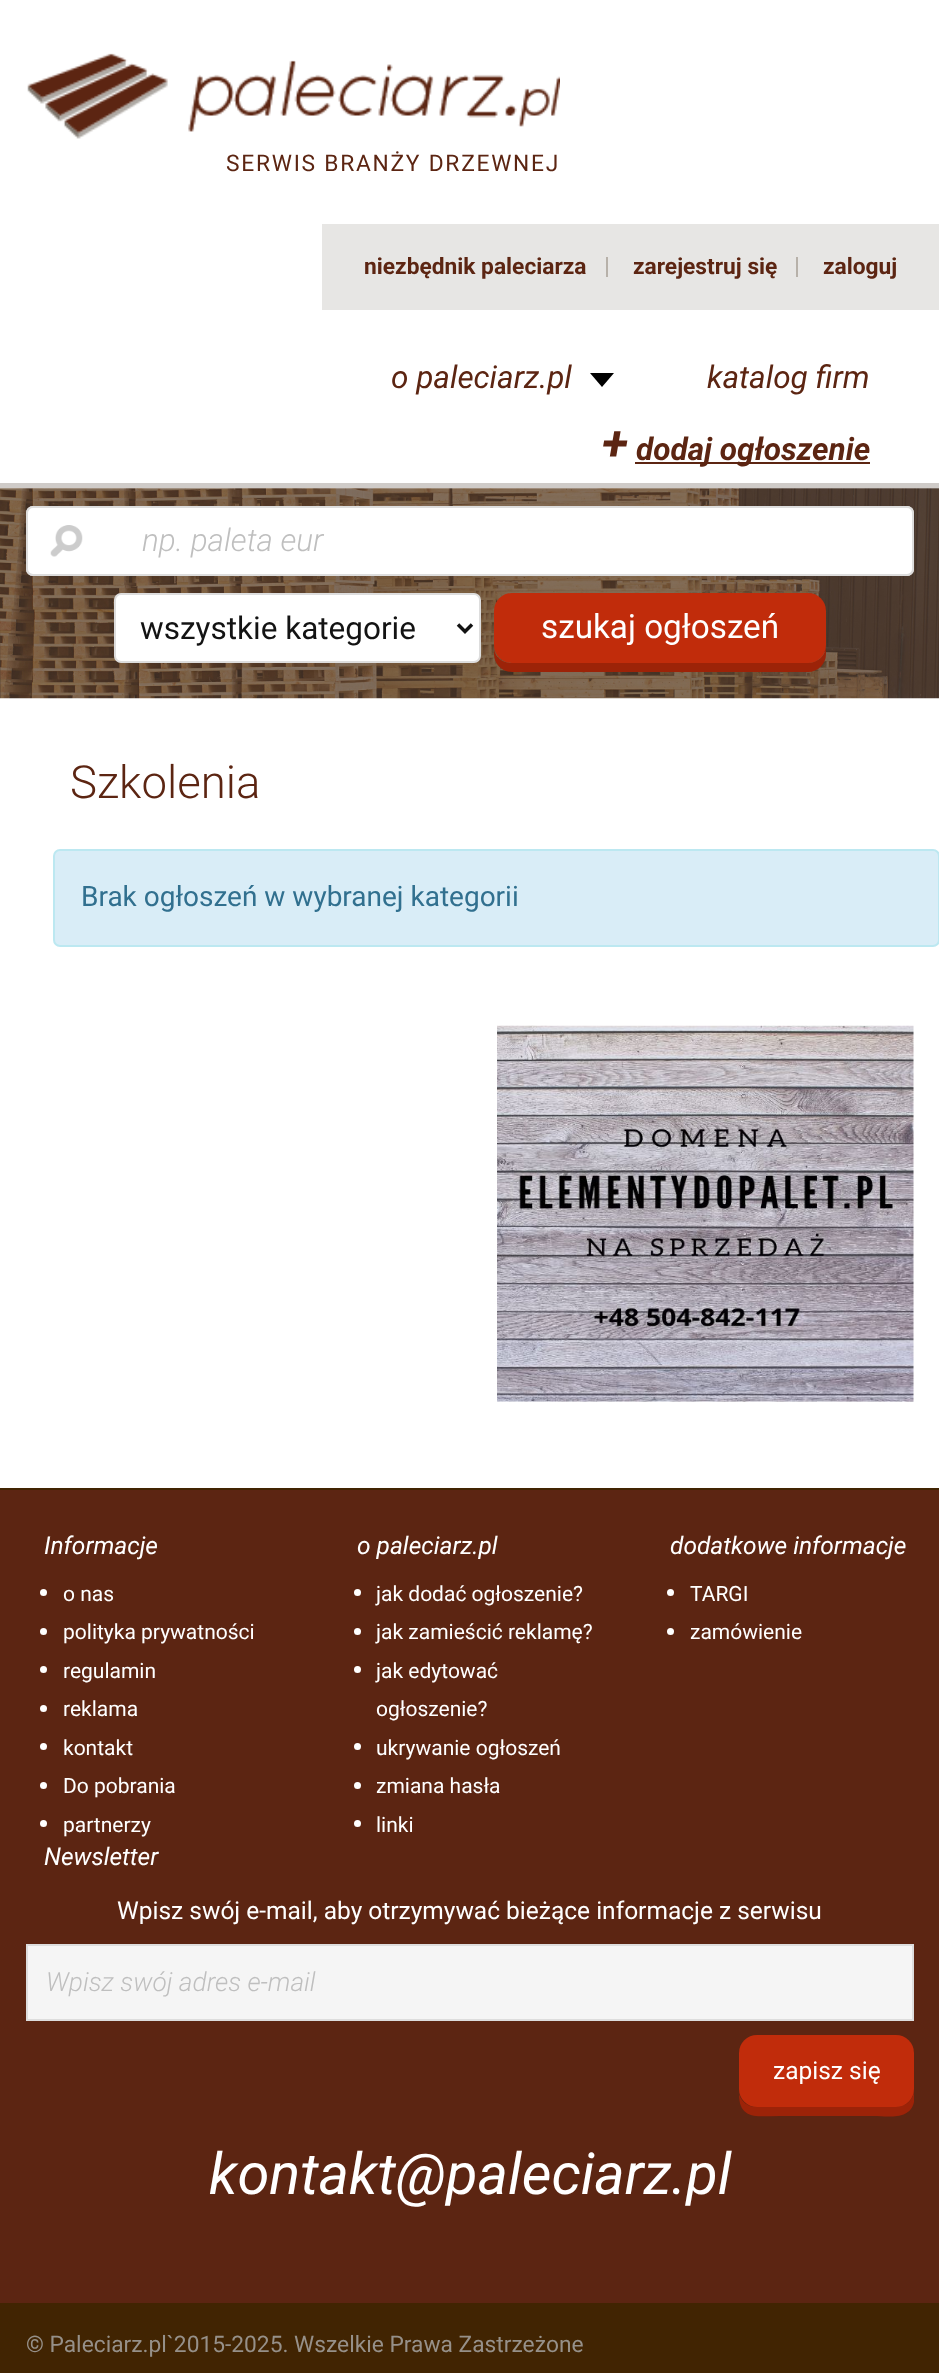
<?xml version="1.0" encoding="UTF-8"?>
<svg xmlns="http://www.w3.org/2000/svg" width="939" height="2373">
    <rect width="100%" height="100%" fill="#FFFFFF"/>
    <rect x="0" y="483" width="939" height="5" fill="#CFCBC8"/>
    <image x="27" y="53" width="533" height="86" href="img_01.png"/>
    <text x="226" y="171" font-family="Roboto" font-size="22.75" letter-spacing="1.75" fill="#5C2512">SERWIS BRANŻY DRZEWNEJ</text>
    <rect x="322" y="224" width="617" height="86" fill="#E7E6E4"/>
    <text x="364" y="274" font-family="Roboto" font-size="22.75" font-weight="700" fill="#5C2512">niezbędnik paleciarza</text>
    <rect x="606" y="257" width="2" height="20" fill="#B7B1A9"/>
    <text x="633" y="274" font-family="Roboto" font-size="22.75" font-weight="700" fill="#5C2512">zarejestruj się</text>
    <rect x="796" y="257" width="2" height="20" fill="#B7B1A9"/>
    <text x="823" y="274" font-family="Roboto" font-size="22.75" font-weight="700" fill="#5C2512">zaloguj</text>
    <text x="391" y="388" font-family="Roboto" font-size="31.5" font-style="italic" fill="#5C2512">o paleciarz.pl</text>
    <path d="M 590 373 H 614 L 602 387 Z" fill="#000000"/>
    <text x="707" y="388" font-family="Roboto" font-size="31.5" font-style="italic" fill="#5C2512">katalog firm</text>
    <text x="602" y="460" font-family="Roboto" font-size="49" font-weight="700" font-style="italic" fill="#5C2512">+</text>
    <rect x="635" y="462" width="235" height="2" fill="#5C2512"/>
    <text x="636" y="460" font-family="Roboto" font-size="31.5" font-weight="700" font-style="italic" fill="#5C2512">dodaj ogłoszenie</text>
    <image x="0" y="488" width="939" height="211" href="img_02.png"/>
    <rect x="26" y="506" width="888" height="70" rx="7" fill="#FFFFFF"/>
    <image x="50" y="525" width="33" height="32" href="img_03.png"/>
    <rect x="27" y="507" width="886" height="68" rx="6" fill="none" stroke="#DDDDDD" stroke-width="2"/>
    <text x="142" y="551" font-family="Roboto" font-size="31.5" font-weight="300" font-style="italic" fill="#BFBFBF">np. paleta eur</text>
    <rect x="115" y="594" width="365" height="68" rx="6" fill="#FFFFFF" stroke="#DDDDDD" stroke-width="2"/>
    <path d="M 458 624.5 L 465 631.5 L 472 624.5" fill="none" stroke="#131313" stroke-width="3.5"/>
    <text x="140" y="639" font-family="Roboto" font-size="31.5" fill="#131313">wszystkie kategorie</text>
    <path d="M 494 650 V 654 C 494 664 502 672 512 672 H 808 C 818 672 826 664 826 654 V 646 C 826 655 818 663 808 663 H 511 C 503 663 496 658 494 650 Z" fill="#9C2308"/>
    <rect x="494" y="593" width="332" height="70" rx="18" fill="#C12C0B"/>
    <text x="541" y="638" font-family="Roboto" font-size="33.25" fill="#FFFFFF">szukaj ogłoszeń</text>
    <text x="70" y="798" font-family="Roboto" font-size="45.5" font-weight="300" fill="#5C2512">Szkolenia</text>
    <rect x="54" y="850" width="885" height="96" rx="6" fill="#D9EDF7" stroke="#BCE8F1" stroke-width="2"/>
    <text x="81" y="906" font-family="Roboto" font-size="28" fill="#31708F">Brak ogłoszeń w wybranej kategorii</text>
    <image x="497" y="1025" width="417" height="377" href="img_04.png"/>
    <rect x="0" y="1490" width="939" height="813" fill="#5C2512"/>
    <rect x="0" y="1488" width="939" height="2" fill="#412402"/>
    <text x="44" y="1554" font-family="Roboto" font-size="24.5" font-style="italic" fill="#FFFFFF">Informacje</text>
    <circle cx="43.5" cy="1592.5" r="3.5" fill="#FFFFFF"/>
    <text x="63" y="1601" font-family="Roboto" font-size="21" fill="#FFFFFF">o nas</text>
    <circle cx="43.5" cy="1631.5" r="3.5" fill="#FFFFFF"/>
    <text x="63" y="1639" font-family="Roboto" font-size="21" fill="#FFFFFF">polityka prywatności</text>
    <circle cx="43.5" cy="1669.5" r="3.5" fill="#FFFFFF"/>
    <text x="63" y="1678" font-family="Roboto" font-size="21" fill="#FFFFFF">regulamin</text>
    <circle cx="43.5" cy="1708.5" r="3.5" fill="#FFFFFF"/>
    <text x="63" y="1716" font-family="Roboto" font-size="21" fill="#FFFFFF">reklama</text>
    <circle cx="43.5" cy="1746.5" r="3.5" fill="#FFFFFF"/>
    <text x="63" y="1755" font-family="Roboto" font-size="21" fill="#FFFFFF">kontakt</text>
    <circle cx="43.5" cy="1785.5" r="3.5" fill="#FFFFFF"/>
    <text x="63" y="1793" font-family="Roboto" font-size="21" fill="#FFFFFF">Do pobrania</text>
    <circle cx="43.5" cy="1823.5" r="3.5" fill="#FFFFFF"/>
    <text x="63" y="1832" font-family="Roboto" font-size="21" fill="#FFFFFF">partnerzy</text>
    <text x="357" y="1554" font-family="Roboto" font-size="24.5" font-style="italic" fill="#FFFFFF">o paleciarz.pl</text>
    <circle cx="357.5" cy="1592.5" r="3.5" fill="#FFFFFF"/>
    <text x="376" y="1601" font-family="Roboto" font-size="21" fill="#FFFFFF">jak dodać ogłoszenie?</text>
    <circle cx="357.5" cy="1631.5" r="3.5" fill="#FFFFFF"/>
    <text x="376" y="1639" font-family="Roboto" font-size="21" fill="#FFFFFF">jak zamieścić reklamę?</text>
    <circle cx="357.5" cy="1669.5" r="3.5" fill="#FFFFFF"/>
    <text font-family="Roboto" font-size="21" fill="#FFFFFF">
        <tspan x="376" y="1678">jak edytować</tspan>
        <tspan x="376" y="1716">ogłoszenie?</tspan>
    </text>
    <circle cx="357.5" cy="1746.5" r="3.5" fill="#FFFFFF"/>
    <text x="376" y="1755" font-family="Roboto" font-size="21" fill="#FFFFFF">ukrywanie ogłoszeń</text>
    <circle cx="357.5" cy="1785.5" r="3.5" fill="#FFFFFF"/>
    <text x="376" y="1793" font-family="Roboto" font-size="21" fill="#FFFFFF">zmiana hasła</text>
    <circle cx="357.5" cy="1823.5" r="3.5" fill="#FFFFFF"/>
    <text x="376" y="1832" font-family="Roboto" font-size="21" fill="#FFFFFF">linki</text>
    <text x="670" y="1554" font-family="Roboto" font-size="24.5" font-style="italic" fill="#FFFFFF">dodatkowe informacje</text>
    <circle cx="670.5" cy="1592.5" r="3.5" fill="#FFFFFF"/>
    <text x="690" y="1601" font-family="Roboto" font-size="21" fill="#FFFFFF">TARGI</text>
    <circle cx="670.5" cy="1631.5" r="3.5" fill="#FFFFFF"/>
    <text x="690" y="1639" font-family="Roboto" font-size="21" fill="#FFFFFF">zamówienie</text>
    <text x="44" y="1865" font-family="Roboto" font-size="24.5" font-style="italic" fill="#FFFFFF">Newsletter</text>
    <text x="117" y="1919" font-family="Roboto" font-size="24.5" fill="#FFFFFF">Wpisz swój e-mail, aby otrzymywać bieżące informacje z serwisu</text>
    <rect x="27" y="1945" width="886" height="75" fill="#F5F5F5" stroke="#DDDDDD" stroke-width="2"/>
    <text x="46" y="1991" font-family="Roboto" font-size="26.25" font-weight="300" font-style="italic" fill="#BFBFBF">Wpisz swój adres e-mail</text>
    <path d="M 739 2094 C 739 2121 759 2116 780 2116 H 873 C 886 2116 910 2121 914 2102 V 2068 V 2058 V 2090 C 914 2099 906 2107 896 2107 H 756 C 748 2107 741 2101 739 2094 Z" fill="#9C2308"/>
    <rect x="739" y="2035" width="175" height="72" rx="18" fill="#C12C0B"/>
    <text x="773" y="2079" font-family="Roboto" font-size="24.5" fill="#FFFFFF">zapisz się</text>
    <text x="209" y="2194" font-family="Roboto" font-size="57.75" font-style="italic" fill="#FFFFFF">kontakt@paleciarz.pl</text>
    <rect x="0" y="2303" width="939" height="70" fill="#412402"/>
    <text x="26" y="2352" font-family="Roboto" font-size="22.75" fill="#969089">© Paleciarz.pl`2015-2025. Wszelkie Prawa Zastrzeżone</text>
</svg>
